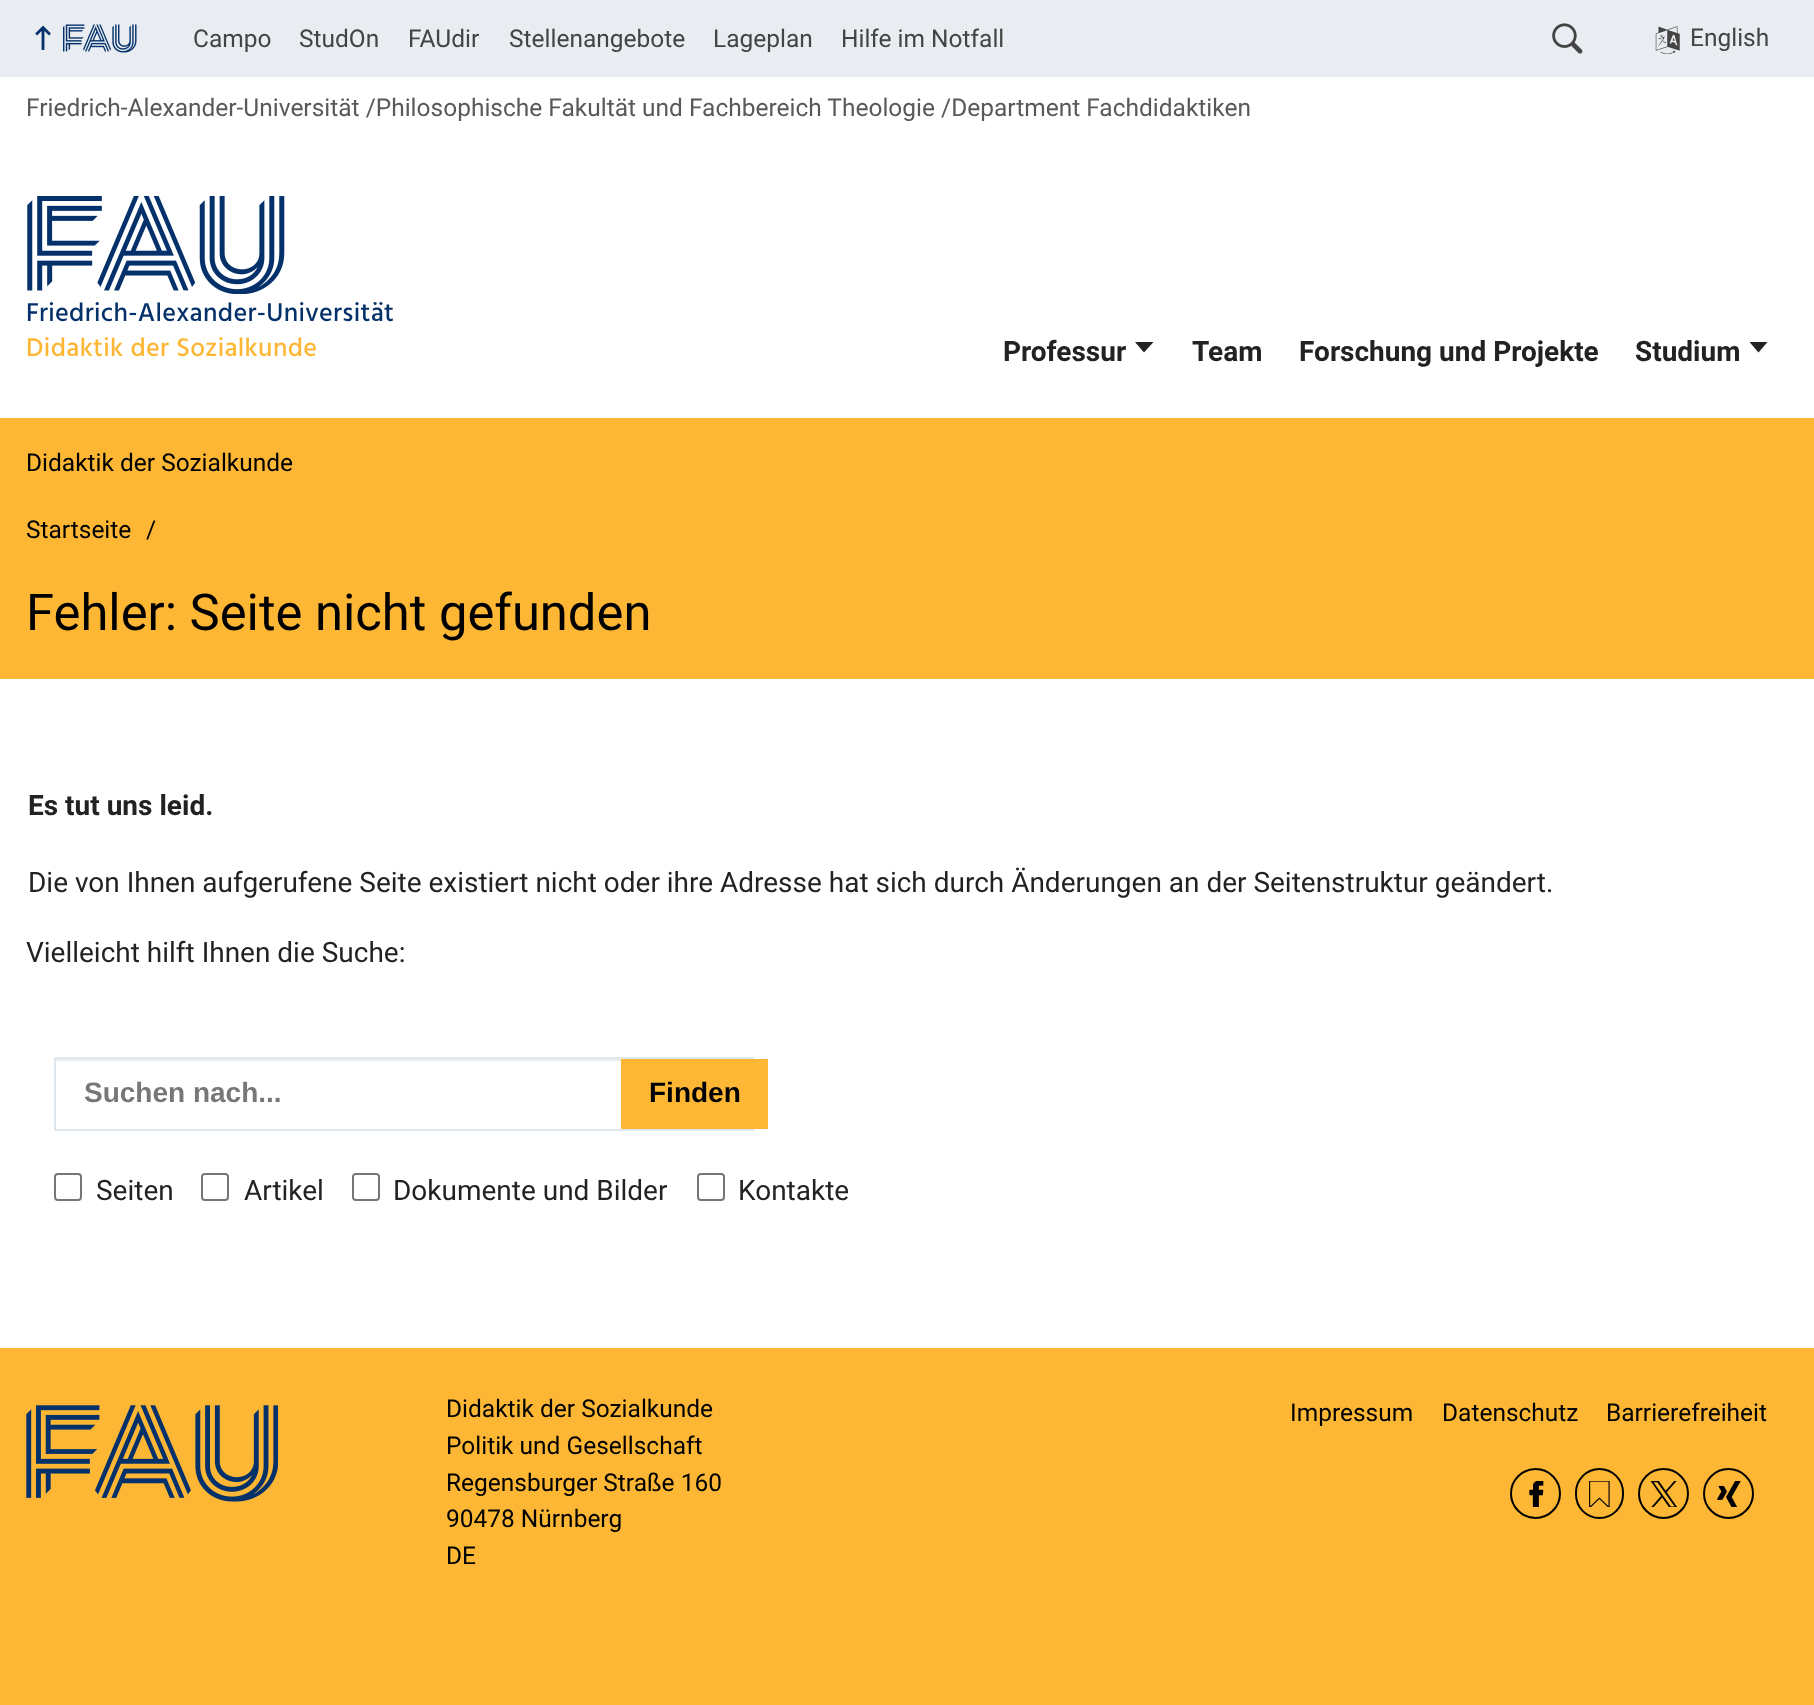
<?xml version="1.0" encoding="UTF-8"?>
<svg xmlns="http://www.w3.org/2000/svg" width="1814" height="1705">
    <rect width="100%" height="100%" fill="#FFFFFF"/>
    <rect x="0" y="0" width="1814" height="77" fill="#E9EDF2"/>
    <image x="35" y="25" width="16" height="25" href="img_01.png"/>
    <image x="63" y="24" width="74" height="29" href="img_02.png"/>
    <text x="193" y="47" font-family="Roboto" font-size="24.5" fill="#444444">Campo</text>
    <text x="299" y="47" font-family="Roboto" font-size="24.5" fill="#444444">StudOn</text>
    <text x="408" y="47" font-family="Roboto" font-size="24.5" fill="#444444">FAUdir</text>
    <text x="509" y="47" font-family="Roboto" font-size="24.5" fill="#444444">Stellenangebote</text>
    <text x="713" y="47" font-family="Roboto" font-size="24.5" fill="#444444">Lageplan</text>
    <text x="841" y="47" font-family="Roboto" font-size="24.5" fill="#444444">Hilfe im Notfall</text>
    <image x="1552" y="23" width="31" height="31" href="img_03.png"/>
    <image x="1655" y="26" width="25" height="28" href="img_04.png"/>
    <text x="1690" y="46" font-family="Roboto" font-size="24.5" fill="#444444">English</text>
    <text x="26" y="116" font-family="Roboto" font-size="24.5" fill="#5B5858">Friedrich-Alexander-Universität /Philosophische Fakultät und Fachbereich Theologie /Department Fachdidaktiken</text>
    <image x="27" y="196" width="258" height="98" href="img_05.png"/>
    <text x="26" y="321" font-family="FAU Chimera" font-size="26.25" font-weight="500" letter-spacing="0.35" fill="#04316A">Friedrich-Alexander-Universität</text>
    <text x="26" y="356" font-family="FAU Chimera" font-size="26.25" font-weight="500" letter-spacing="0.35" fill="#FDB735">Didaktik der Sozialkunde</text>
    <text x="1003" y="361" font-family="Roboto" font-size="28" font-weight="700" fill="#222222">Professur</text>
    <path d="M 1135 342 L 1144 352.5 L 1153.5 342 Z" fill="#222222"/>
    <text x="1192" y="361" font-family="Roboto" font-size="28" font-weight="700" fill="#222222">Team</text>
    <text x="1299" y="361" font-family="Roboto" font-size="28" font-weight="700" fill="#222222">Forschung und Projekte</text>
    <text x="1635" y="361" font-family="Roboto" font-size="28" font-weight="700" fill="#222222">Studium</text>
    <path d="M 1749.5 342 L 1758.5 352.5 L 1767.5 342 Z" fill="#222222"/>
    <rect x="0" y="418" width="1814" height="261" fill="#FDB735"/>
    <text x="26" y="471" font-family="Roboto" font-size="24.5" fill="#000000">Didaktik der Sozialkunde</text>
    <text x="26" y="538" font-family="Roboto" font-size="24.5" fill="#000000">Startseite</text>
    <text x="146" y="538" font-family="Roboto" font-size="24.5" fill="#000000">/</text>
    <text x="26" y="630" font-family="Roboto" font-size="50.75" fill="#000000">Fehler: Seite nicht gefunden</text>
    <text x="28" y="815" font-family="Roboto" font-size="28" font-weight="700" fill="#222222">Es tut uns leid.</text>
    <text x="28" y="892" font-family="Roboto" font-size="28" fill="#222222">Die von Ihnen aufgerufene Seite existiert nicht oder ihre Adresse hat sich durch Änderungen an der Seitenstruktur geändert.</text>
    <text x="26" y="962" font-family="Roboto" font-size="28" fill="#222222">Vielleicht hilft Ihnen die Suche:</text>
    <rect x="56" y="1059" width="565" height="2" fill="#ECECEC"/>
    <rect x="55" y="1058" width="698" height="72" fill="none" stroke="#DFE6EC" stroke-width="2"/>
    <text x="84" y="1102" font-family="Liberation Sans" font-size="28" font-weight="700" fill="#797676">Suchen nach...</text>
    <rect x="621" y="1059" width="147" height="70" fill="#FDB735"/>
    <text x="649" y="1102" font-family="Liberation Sans" font-size="28" font-weight="700" fill="#000000">Finden</text>
    <rect x="55" y="1174" width="26" height="26" rx="3" fill="none" stroke="#767676" stroke-width="2"/>
    <text x="96" y="1200" font-family="Roboto" font-size="28" fill="#222222">Seiten</text>
    <rect x="202" y="1174" width="26" height="26" rx="3" fill="none" stroke="#767676" stroke-width="2"/>
    <text x="244" y="1200" font-family="Roboto" font-size="28" fill="#222222">Artikel</text>
    <rect x="353" y="1174" width="26" height="26" rx="3" fill="none" stroke="#767676" stroke-width="2"/>
    <text x="393" y="1200" font-family="Roboto" font-size="28" fill="#222222">Dokumente und Bilder</text>
    <rect x="698" y="1174" width="26" height="26" rx="3" fill="none" stroke="#767676" stroke-width="2"/>
    <text x="738" y="1200" font-family="Roboto" font-size="28" fill="#222222">Kontakte</text>
    <rect x="0" y="1348" width="1814" height="357" fill="#FDB735"/>
    <image x="26" y="1405" width="252" height="97" href="img_06.png"/>
    <text font-family="Roboto" font-size="24.5" fill="#000000">
        <tspan x="446" y="1417">Didaktik der Sozialkunde</tspan>
        <tspan x="446" y="1454">Politik und Gesellschaft</tspan>
        <tspan x="446" y="1491">Regensburger Straße 160</tspan>
        <tspan x="446" y="1527">90478 Nürnberg</tspan>
        <tspan x="446" y="1564">DE</tspan>
    </text>
    <text x="1290" y="1421" font-family="Roboto" font-size="24.5" fill="#000000">Impressum</text>
    <text x="1442" y="1421" font-family="Roboto" font-size="24.5" fill="#000000">Datenschutz</text>
    <text x="1606" y="1421" font-family="Roboto" font-size="24.5" fill="#000000">Barrierefreiheit</text>
    <circle cx="1535.5" cy="1493.5" r="24.5" fill="none" stroke="#000000" stroke-width="2"/>
    <image x="1529" y="1481" width="15" height="26" href="img_07.png"/>
    <rect x="1576" y="1469" width="47" height="49" rx="23.5" fill="none" stroke="#000000" stroke-width="2"/>
    <image x="1589" y="1481" width="21" height="26" href="img_08.png"/>
    <circle cx="1663.5" cy="1493.5" r="24.5" fill="none" stroke="#000000" stroke-width="2"/>
    <image x="1650" y="1481" width="27" height="26" href="img_09.png"/>
    <circle cx="1728.5" cy="1493.5" r="24.5" fill="none" stroke="#000000" stroke-width="2"/>
    <image x="1717" y="1481" width="24" height="26" href="img_10.png"/>
</svg>
